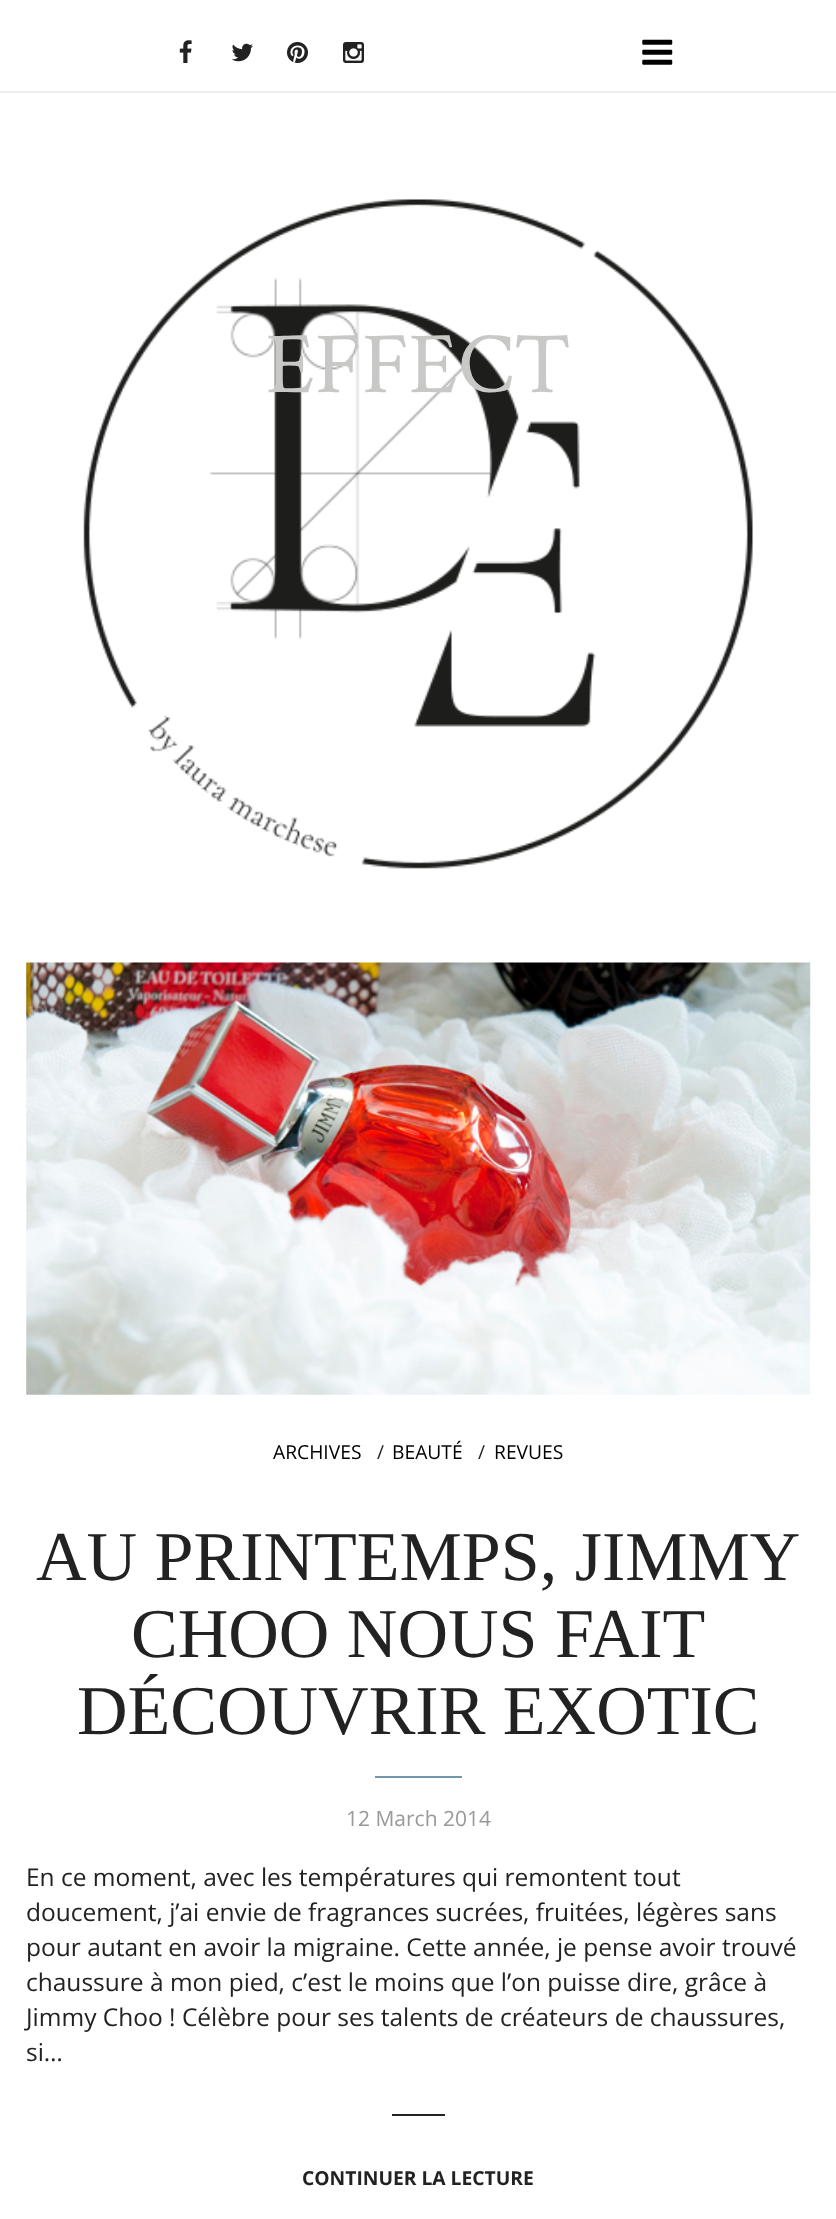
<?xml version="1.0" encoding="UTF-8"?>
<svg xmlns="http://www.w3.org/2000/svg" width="836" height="2219">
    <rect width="100%" height="100%" fill="#FFFFFF"/>
    <rect x="0" y="91" width="836" height="2" fill="#EEEEEE"/>
    <image x="179" y="40" width="13" height="23" href="img_01.png"/>
    <image x="231" y="43" width="22" height="19" href="img_02.png"/>
    <image x="287" y="42" width="21" height="21" href="img_03.png"/>
    <image x="343" y="42" width="21" height="21" href="img_04.png"/>
    <image x="642" y="39" width="31" height="26" href="img_05.png"/>
    <image x="83" y="199" width="670" height="670" href="img_06.png"/>
    <text x="266" y="392" font-family="Crimson Text" font-size="87.5" fill="#C8C8C7">EFFECT</text>
    <image x="26" y="962" width="785" height="433" href="img_07.png"/>
    <text x="273" y="1459" font-family="Open Sans" font-size="19.25" fill="#000000">ARCHIVES</text>
    <text x="377" y="1459" font-family="Open Sans" font-size="19.25" fill="#222222">/</text>
    <text x="392" y="1459" font-family="Open Sans" font-size="19.25" fill="#000000">BEAUTÉ</text>
    <text x="478" y="1459" font-family="Open Sans" font-size="19.25" fill="#222222">/</text>
    <text x="494" y="1459" font-family="Open Sans" font-size="19.25" fill="#000000">REVUES</text>
    <text x="36" y="1580" font-family="Liberation Serif" font-size="70" fill="#222222">AU PRINTEMPS, JIMMY</text>
    <text x="131" y="1657" font-family="Liberation Serif" font-size="70" fill="#222222">CHOO NOUS FAIT</text>
    <text x="77" y="1734" font-family="Liberation Serif" font-size="70" fill="#222222">DÉCOUVRIR EXOTIC</text>
    <rect x="375" y="1776" width="87" height="2" fill="#7197AF"/>
    <text x="346" y="1826" font-family="Open Sans" font-size="21" fill="#999999">12 March 2014</text>
    <text font-family="Open Sans" font-size="24.5" fill="#222222">
        <tspan x="26" y="1886">En ce moment, avec les températures qui remontent tout</tspan>
        <tspan x="26" y="1921">doucement, j’ai envie de fragrances sucrées, fruitées, légères sans</tspan>
        <tspan x="26" y="1956">pour autant en avoir la migraine. Cette année, je pense avoir trouvé</tspan>
        <tspan x="26" y="1991">chaussure à mon pied, c’est le moins que l’on puisse dire, grâce à</tspan>
        <tspan x="26" y="2026">Jimmy Choo ! Célèbre pour ses talents de créateurs de chaussures,</tspan>
        <tspan x="26" y="2061">si…</tspan>
    </text>
    <rect x="392" y="2114" width="53" height="2" fill="#222222"/>
    <text x="302" y="2185" font-family="Open Sans" font-size="19.25" font-weight="700" fill="#222222">CONTINUER LA LECTURE</text>
</svg>
